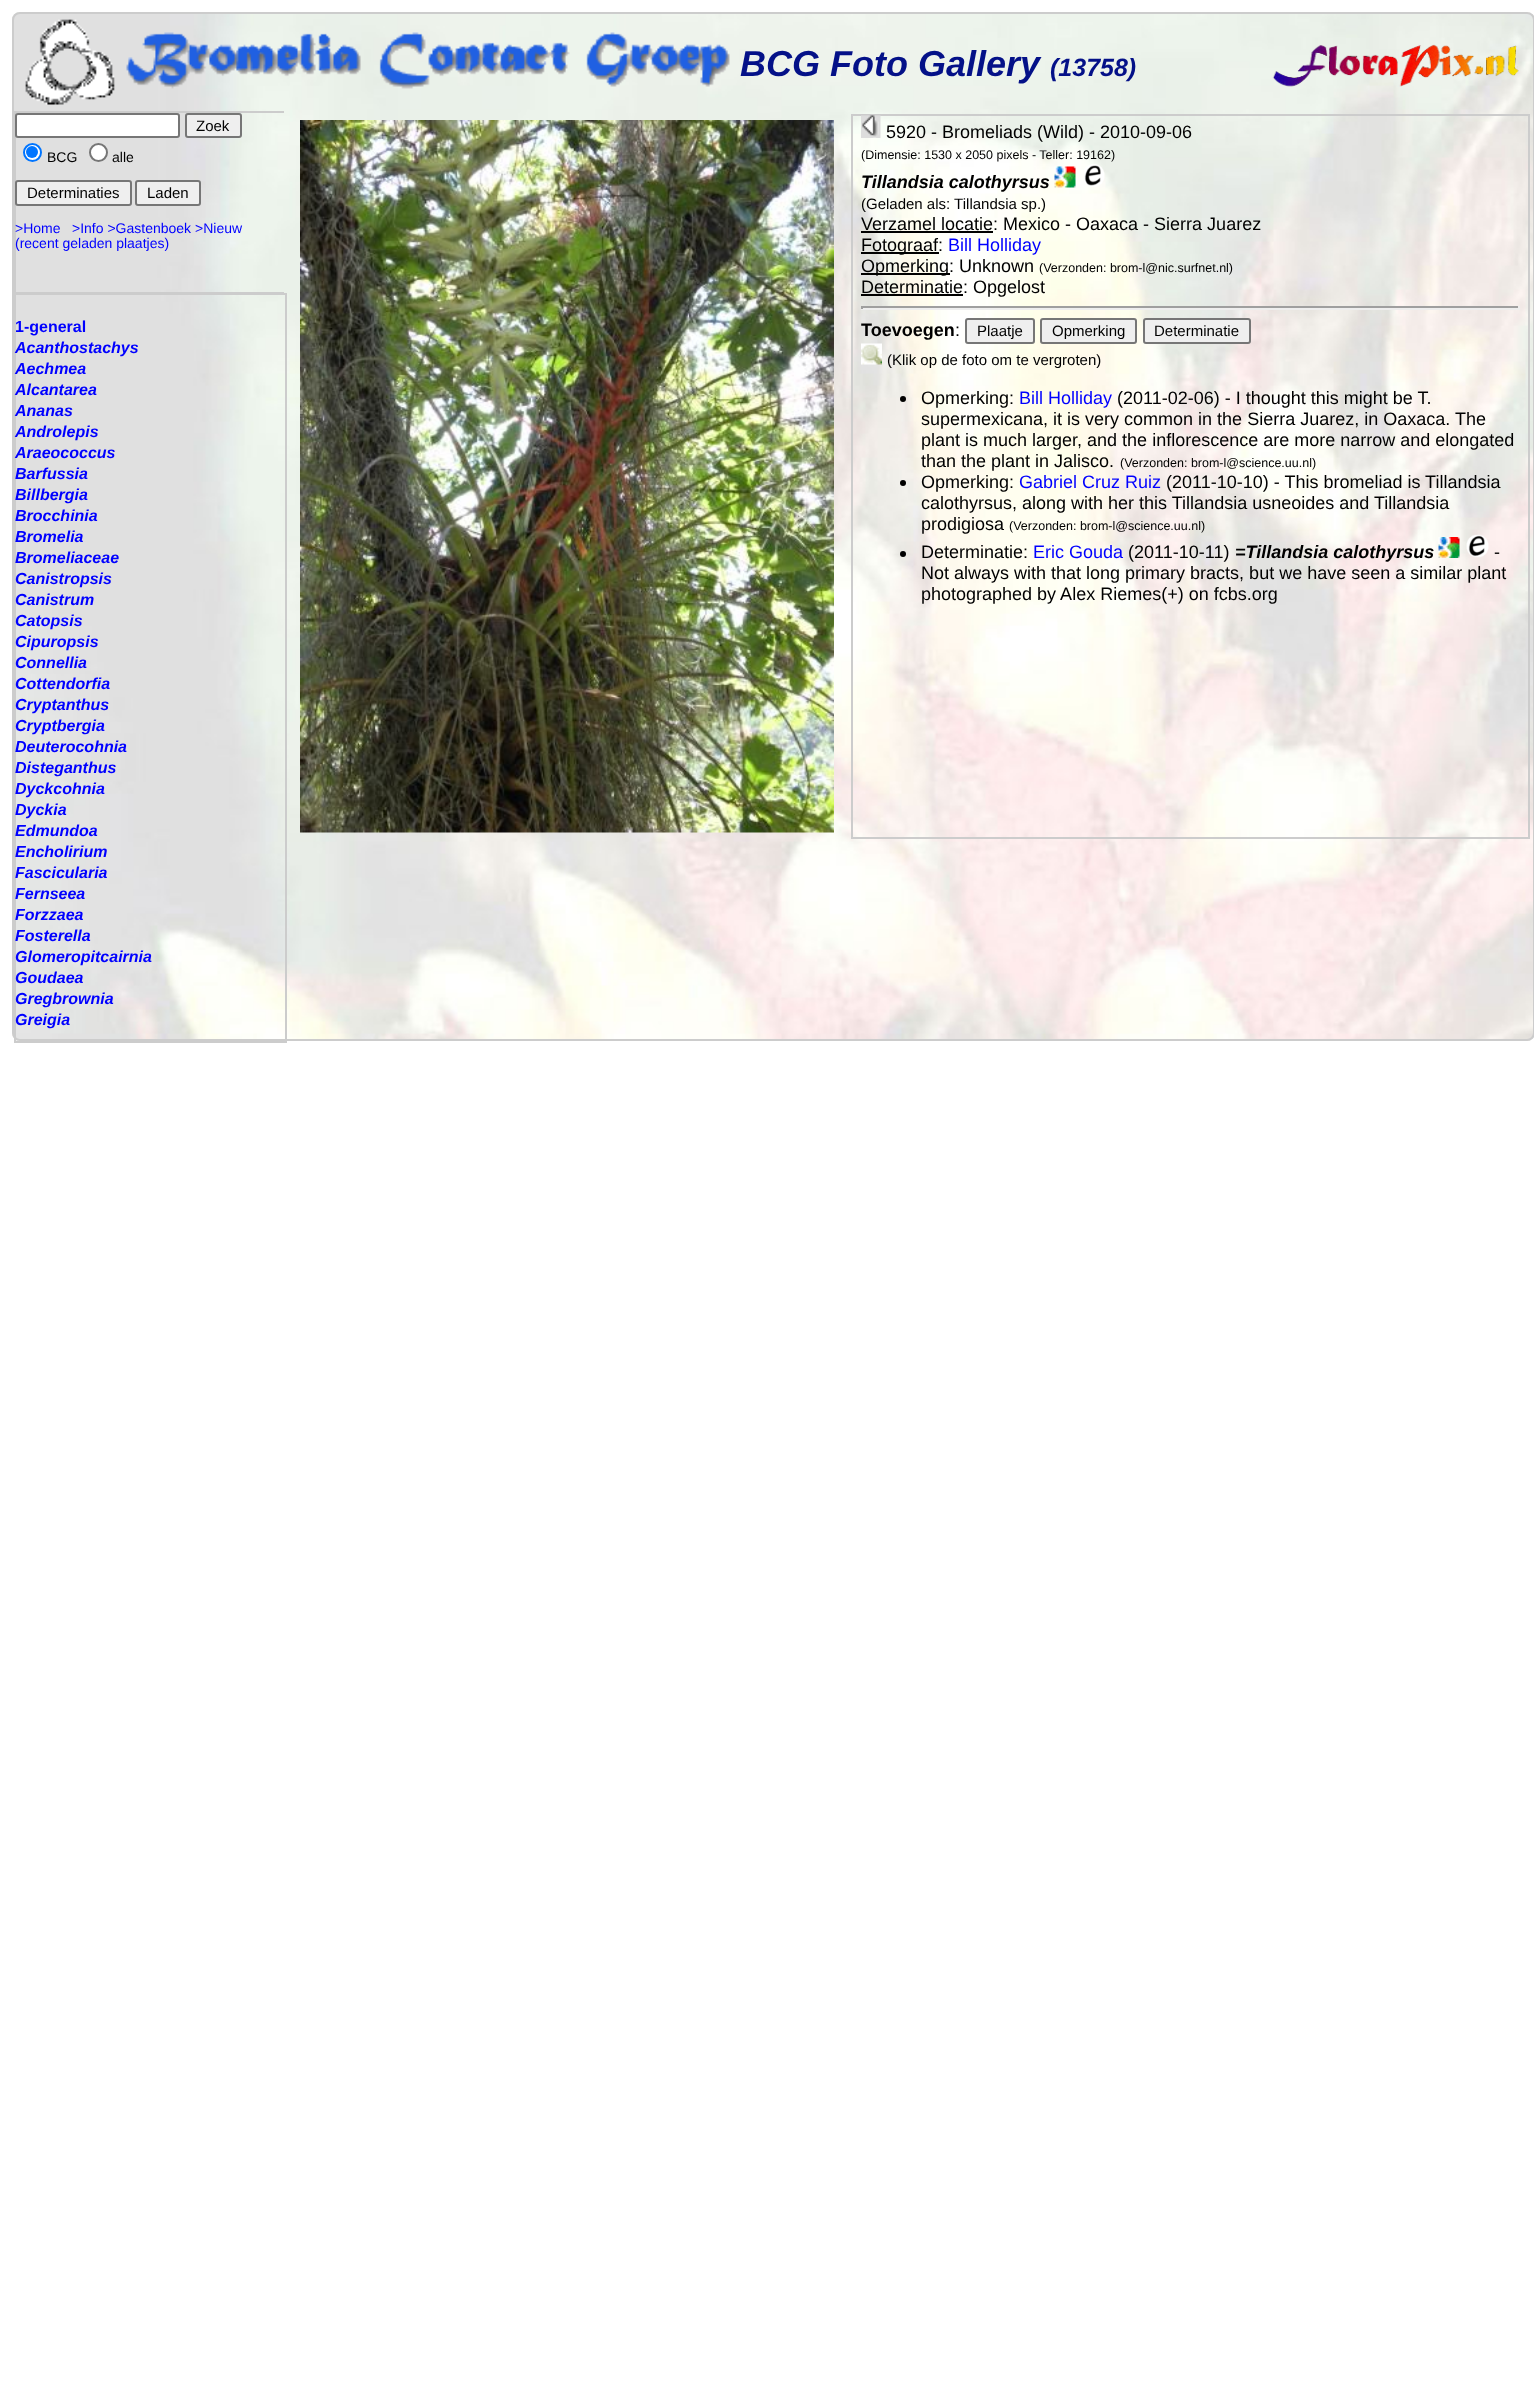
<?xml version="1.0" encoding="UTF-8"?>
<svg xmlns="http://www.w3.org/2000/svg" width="1534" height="2402">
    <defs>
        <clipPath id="clip1"><rect x="14" y="111" width="270" height="929"/></clipPath>
    </defs>
    <rect width="100%" height="100%" fill="#FFFFFF"/>
    <image x="12" y="12" width="1522" height="1029" href="img_01.png"/>
    <rect x="13" y="13" width="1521" height="1027" rx="7" fill="none" stroke="#CCCCCC" stroke-width="2"/>
    <image x="25" y="19" width="705" height="86" href="img_02.png"/>
    <text x="740" y="76" font-family="Liberation Sans" font-size="36" font-weight="700" font-style="italic" fill="#041188">BCG Foto Gallery</text>
    <text x="1050" y="76" font-family="Liberation Sans" font-size="25" font-weight="700" font-style="italic" fill="#041188">(13758)</text>
    <image x="1272" y="44" width="247" height="43" href="img_03.png"/>
    <g clip-path="url(#clip1)">
        <rect x="15" y="112" width="271" height="181" fill="none" stroke="#CCCCCC" stroke-width="2"/>
    </g>
    <rect x="16" y="114" width="163" height="23" rx="2" fill="#FFFFFF" stroke="#767676" stroke-width="2"/>
    <rect x="186" y="114" width="55" height="23" rx="2" fill="#EFEFEF" stroke="#767676" stroke-width="2"/>
    <text x="196" y="131" font-family="Liberation Sans" font-size="15" fill="#000000">Zoek</text>
    <circle cx="32.5" cy="152.5" r="8.5" fill="#FFFFFF" stroke="#0075FF" stroke-width="2"/>
    <circle cx="32" cy="152" r="6" fill="#0075FF"/>
    <text x="47" y="162" font-family="Liberation Sans" font-size="14" fill="#000000">BCG</text>
    <circle cx="98.5" cy="152.5" r="8.5" fill="#FFFFFF" stroke="#767676" stroke-width="2"/>
    <text x="112" y="162" font-family="Liberation Sans" font-size="14" fill="#000000">alle</text>
    <rect x="16" y="181" width="115" height="24" rx="2" fill="#EFEFEF" stroke="#767676" stroke-width="2"/>
    <text x="27" y="198" font-family="Liberation Sans" font-size="15" fill="#000000">Determinaties</text>
    <rect x="136" y="181" width="64" height="24" rx="2" fill="#EFEFEF" stroke="#767676" stroke-width="2"/>
    <text x="147" y="198" font-family="Liberation Sans" font-size="15" fill="#000000">Laden</text>
    <text x="15" y="233" font-family="Liberation Sans" font-size="14" fill="#0000FF">&gt;Home</text>
    <text x="72" y="233" font-family="Liberation Sans" font-size="14" fill="#0000FF">&gt;Info &gt;Gastenboek &gt;Nieuw</text>
    <text x="15" y="248" font-family="Liberation Sans" font-size="14" fill="#0000FF">(recent geladen plaatjes)</text>
    <rect x="15" y="294" width="271" height="748" fill="none" stroke="#CCCCCC" stroke-width="2"/>
    <text x="15" y="332" font-family="Liberation Sans" font-size="16" font-weight="700" fill="#0000FF">1-general</text>
    <text font-family="Liberation Sans" font-size="16" font-weight="700" font-style="italic" fill="#0000FF">
        <tspan x="15" y="353">Acanthostachys</tspan>
        <tspan x="15" y="374">Aechmea</tspan>
        <tspan x="15" y="395">Alcantarea</tspan>
        <tspan x="15" y="416">Ananas</tspan>
        <tspan x="15" y="437">Androlepis</tspan>
        <tspan x="15" y="458">Araeococcus</tspan>
        <tspan x="15" y="479">Barfussia</tspan>
        <tspan x="15" y="500">Billbergia</tspan>
        <tspan x="15" y="521">Brocchinia</tspan>
        <tspan x="15" y="542">Bromelia</tspan>
        <tspan x="15" y="563">Bromeliaceae</tspan>
        <tspan x="15" y="584">Canistropsis</tspan>
        <tspan x="15" y="605">Canistrum</tspan>
        <tspan x="15" y="626">Catopsis</tspan>
        <tspan x="15" y="647">Cipuropsis</tspan>
        <tspan x="15" y="668">Connellia</tspan>
        <tspan x="15" y="689">Cottendorfia</tspan>
        <tspan x="15" y="710">Cryptanthus</tspan>
        <tspan x="15" y="731">Cryptbergia</tspan>
        <tspan x="15" y="752">Deuterocohnia</tspan>
        <tspan x="15" y="773">Disteganthus</tspan>
        <tspan x="15" y="794">Dyckcohnia</tspan>
        <tspan x="15" y="815">Dyckia</tspan>
        <tspan x="15" y="836">Edmundoa</tspan>
        <tspan x="15" y="857">Encholirium</tspan>
        <tspan x="15" y="878">Fascicularia</tspan>
        <tspan x="15" y="899">Fernseea</tspan>
        <tspan x="15" y="920">Forzzaea</tspan>
        <tspan x="15" y="941">Fosterella</tspan>
        <tspan x="15" y="962">Glomeropitcairnia</tspan>
        <tspan x="15" y="983">Goudaea</tspan>
        <tspan x="15" y="1004">Gregbrownia</tspan>
        <tspan x="15" y="1025">Greigia</tspan>
    </text>
    <image x="300" y="120" width="534" height="713" href="img_04.png"/>
    <rect x="852" y="115" width="677" height="723" fill="none" stroke="#CCCCCC" stroke-width="2"/>
    <image x="861" y="115" width="20" height="23" href="img_05.png"/>
    <text x="886" y="138" font-family="Liberation Sans" font-size="18" fill="#000000">5920 - Bromeliads (Wild) - 2010-09-06</text>
    <text x="861" y="159" font-family="Liberation Sans" font-size="12.5" fill="#000000">(Dimensie: 1530 x 2050 pixels - Teller: 19162)</text>
    <text x="861" y="188" font-family="Liberation Sans" font-size="18" font-weight="700" font-style="italic" fill="#000000">Tillandsia calothyrsus</text>
    <image x="1054" y="166" width="22" height="22" href="img_06.png"/>
    <image x="1084" y="164" width="21" height="23" href="img_07.png"/>
    <text x="861" y="209" font-family="Liberation Sans" font-size="15" fill="#000000">(Geladen als: Tillandsia sp.)</text>
    <text x="861" y="230" font-family="Liberation Sans" font-size="18" fill="#000000">Verzamel locatie: Mexico - Oaxaca - Sierra Juarez</text>
    <rect x="861" y="231" width="132" height="2" fill="#000000"/>
    <rect x="861" y="252" width="78" height="2" fill="#000000"/>
    <text x="861" y="251" font-family="Liberation Sans" font-size="18" fill="#000000">Fotograaf:</text>
    <text x="948" y="251" font-family="Liberation Sans" font-size="18" fill="#0000FF">Bill Holliday</text>
    <rect x="861" y="273" width="89" height="2" fill="#000000"/>
    <text x="861" y="272" font-family="Liberation Sans" font-size="18" fill="#000000">Opmerking: Unknown</text>
    <text x="1039" y="272" font-family="Liberation Sans" font-size="12.5" fill="#000000">(Verzonden: brom-l@nic.surfnet.nl)</text>
    <rect x="861" y="294" width="102" height="2" fill="#000000"/>
    <text x="861" y="293" font-family="Liberation Sans" font-size="18" fill="#000000">Determinatie: Opgelost</text>
    <rect x="861" y="306" width="659" height="2" fill="#9F9F9F"/>
    <rect x="1518" y="306" width="2" height="3" fill="#EEEEEE"/>
    <rect x="861" y="308" width="659" height="2" fill="#EEEEEE"/>
    <rect x="861" y="306" width="2" height="3" fill="#9F9F9F"/>
    <text x="861" y="336" font-family="Liberation Sans" font-size="18" font-weight="700" fill="#000000">Toevoegen</text>
    <text x="955" y="336" font-family="Liberation Sans" font-size="18" fill="#000000">:</text>
    <rect x="966" y="319" width="68" height="24" rx="2" fill="#EFEFEF" stroke="#767676" stroke-width="2"/>
    <text x="977" y="336" font-family="Liberation Sans" font-size="15" fill="#000000">Plaatje</text>
    <rect x="1041" y="319" width="95" height="24" rx="2" fill="#EFEFEF" stroke="#767676" stroke-width="2"/>
    <text x="1052" y="336" font-family="Liberation Sans" font-size="15" fill="#000000">Opmerking</text>
    <rect x="1144" y="319" width="106" height="24" rx="2" fill="#EFEFEF" stroke="#767676" stroke-width="2"/>
    <text x="1154" y="336" font-family="Liberation Sans" font-size="15" fill="#000000">Determinatie</text>
    <image x="861" y="343" width="21" height="22" href="img_08.png"/>
    <text x="887" y="365" font-family="Liberation Sans" font-size="15" fill="#000000">(Klik op de foto om te vergroten)</text>
    <circle cx="903" cy="399" r="3" fill="#000000"/>
    <text x="921" y="404" font-family="Liberation Sans" font-size="18" fill="#000000">Opmerking:</text>
    <text x="1019" y="404" font-family="Liberation Sans" font-size="18" fill="#0000FF">Bill Holliday</text>
    <text x="1117" y="404" font-family="Liberation Sans" font-size="18" fill="#000000">(2011-02-06) - I thought this might be T.</text>
    <text x="921" y="425" font-family="Liberation Sans" font-size="18" fill="#000000">supermexicana, it is very common in the Sierra Juarez, in Oaxaca.</text>
    <text x="1455" y="425" font-family="Liberation Sans" font-size="18" fill="#000000">The</text>
    <text font-family="Liberation Sans" font-size="18" fill="#000000">
        <tspan x="921" y="446">plant is much larger, and the inflorescence are more narrow and elongated</tspan>
        <tspan x="921" y="467">than the plant in Jalisco.</tspan>
    </text>
    <text x="1120" y="467" font-family="Liberation Sans" font-size="12.5" fill="#000000">(Verzonden: brom-l@science.uu.nl)</text>
    <circle cx="903" cy="483" r="3" fill="#000000"/>
    <text x="921" y="488" font-family="Liberation Sans" font-size="18" fill="#000000">Opmerking:</text>
    <text x="1019" y="488" font-family="Liberation Sans" font-size="18" fill="#0000FF">Gabriel Cruz Ruiz</text>
    <text x="1166" y="488" font-family="Liberation Sans" font-size="18" fill="#000000">(2011-10-10) - This bromeliad is Tillandsia</text>
    <text font-family="Liberation Sans" font-size="18" fill="#000000">
        <tspan x="921" y="509">calothyrsus, along with her this Tillandsia usneoides and Tillandsia</tspan>
        <tspan x="921" y="530">prodigiosa</tspan>
    </text>
    <text x="1009" y="530" font-family="Liberation Sans" font-size="12.5" fill="#000000">(Verzonden: brom-l@science.uu.nl)</text>
    <circle cx="903" cy="554" r="3" fill="#000000"/>
    <text x="921" y="558" font-family="Liberation Sans" font-size="18" fill="#000000">Determinatie:</text>
    <text x="1033" y="558" font-family="Liberation Sans" font-size="18" fill="#0000FF">Eric Gouda</text>
    <text x="1128" y="558" font-family="Liberation Sans" font-size="18" fill="#000000">(2011-10-11)</text>
    <text x="1235" y="558" font-family="Liberation Sans" font-size="18" font-weight="700" font-style="italic" fill="#000000">=Tillandsia calothyrsus</text>
    <image x="1438" y="537" width="22" height="21" href="img_09.png"/>
    <image x="1466" y="534" width="23" height="24" href="img_10.png"/>
    <text x="1494" y="558" font-family="Liberation Sans" font-size="18" fill="#000000">-</text>
    <text font-family="Liberation Sans" font-size="18" fill="#000000">
        <tspan x="921" y="579">Not always with that long primary bracts, but we have seen a similar plant</tspan>
        <tspan x="921" y="600">photographed by Alex Riemes(+) on fcbs.org</tspan>
    </text>
</svg>
